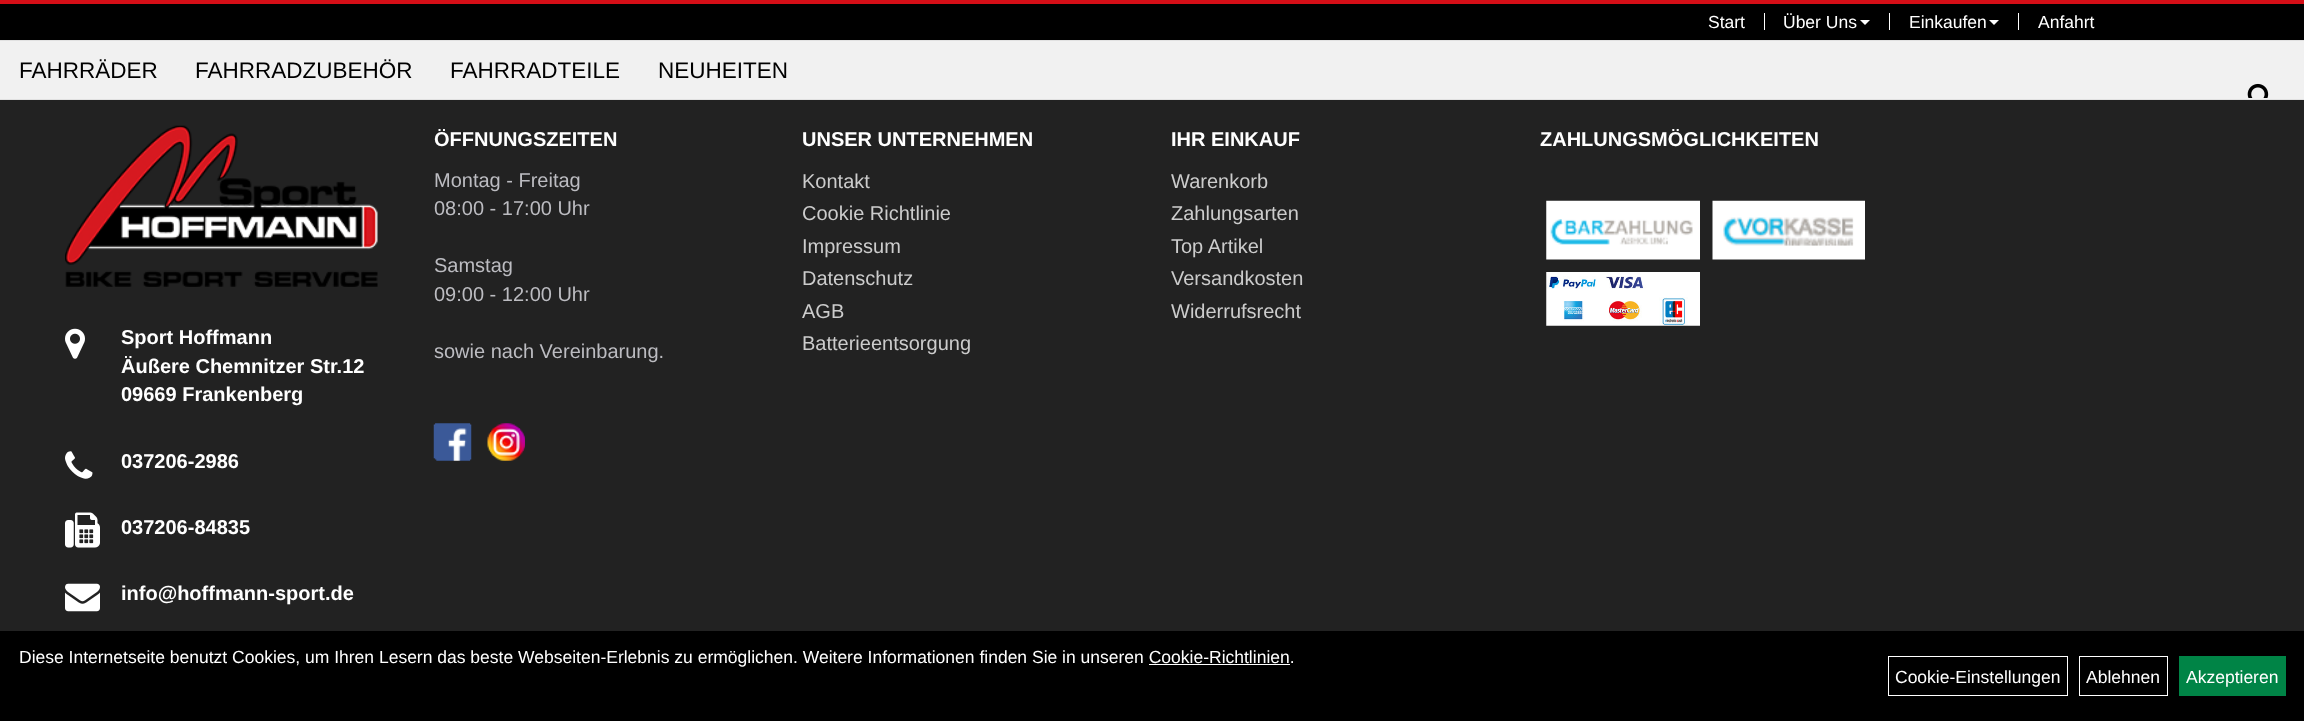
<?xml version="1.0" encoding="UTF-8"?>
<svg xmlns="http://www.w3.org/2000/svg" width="2304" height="721">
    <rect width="100%" height="100%" fill="#222222"/>
    <rect x="0" y="4" width="2304" height="36" fill="#000000"/>
    <rect x="0" y="0" width="2304" height="4" fill="#D50E17"/>
    <rect x="1764" y="13" width="1" height="17" fill="#FFFFFF"/>
    <text x="1708" y="28" font-family="Liberation Sans" font-size="17.5" fill="#FFFFFF">Start</text>
    <rect x="1889" y="13" width="1" height="17" fill="#FFFFFF"/>
    <text x="1783" y="28" font-family="Liberation Sans" font-size="17.5" fill="#FFFFFF">Über Uns</text>
    <path d="M 1860 20 H 1870 L 1865 25 Z" fill="#FFFFFF"/>
    <rect x="2018" y="13" width="1" height="17" fill="#FFFFFF"/>
    <text x="1909" y="28" font-family="Liberation Sans" font-size="17.5" fill="#FFFFFF">Einkaufen</text>
    <path d="M 1989 20 H 1999 L 1994 25 Z" fill="#FFFFFF"/>
    <text x="2038" y="28" font-family="Liberation Sans" font-size="17.5" fill="#FFFFFF">Anfahrt</text>
    <rect x="0" y="41" width="2304" height="58" fill="#F1F1F1"/>
    <rect x="0" y="40" width="2304" height="1" fill="#E1E1E1"/>
    <rect x="0" y="99" width="2304" height="1" fill="#E1E1E1"/>
    <text x="19" y="78" font-family="Liberation Sans" font-size="22.5" fill="#000000">FAHRRÄDER</text>
    <text x="195" y="78" font-family="Liberation Sans" font-size="22.5" fill="#000000">FAHRRADZUBEHÖR</text>
    <text x="450" y="78" font-family="Liberation Sans" font-size="22.5" fill="#000000">FAHRRADTEILE</text>
    <text x="658" y="78" font-family="Liberation Sans" font-size="22.5" fill="#000000">NEUHEITEN</text>
    <image x="2247" y="83" width="22" height="15" href="img_01.png"/>
    <text x="434" y="146" font-family="Liberation Sans" font-size="20" font-weight="700" fill="#FFFFFF">ÖFFNUNGSZEITEN</text>
    <text font-family="Liberation Sans" font-size="20" fill="#BCBCC1">
        <tspan x="434" y="187">Montag - Freitag</tspan>
        <tspan x="434" y="215">08:00 - 17:00 Uhr</tspan>
    </text>
    <text font-family="Liberation Sans" font-size="20" fill="#BCBCC1">
        <tspan x="434" y="272">Samstag</tspan>
        <tspan x="434" y="301">09:00 - 12:00 Uhr</tspan>
    </text>
    <text x="434" y="358" font-family="Liberation Sans" font-size="20" fill="#BCBCC1">sowie nach Vereinbarung.</text>
    <image x="433" y="423" width="39" height="38" href="img_02.png"/>
    <image x="487" y="423" width="38" height="38" href="img_03.png"/>
    <text x="802" y="146" font-family="Liberation Sans" font-size="20" font-weight="700" fill="#FFFFFF">UNSER UNTERNEHMEN</text>
    <text font-family="Liberation Sans" font-size="20" fill="#CCCCCC">
        <tspan x="802" y="188">Kontakt</tspan>
        <tspan x="802" y="220">Cookie Richtlinie</tspan>
        <tspan x="802" y="253">Impressum</tspan>
        <tspan x="802" y="285">Datenschutz</tspan>
        <tspan x="802" y="318">AGB</tspan>
        <tspan x="802" y="350">Batterieentsorgung</tspan>
    </text>
    <text x="1171" y="146" font-family="Liberation Sans" font-size="20" font-weight="700" fill="#FFFFFF">IHR EINKAUF</text>
    <text font-family="Liberation Sans" font-size="20" fill="#CCCCCC">
        <tspan x="1171" y="188">Warenkorb</tspan>
        <tspan x="1171" y="220">Zahlungsarten</tspan>
        <tspan x="1171" y="253">Top Artikel</tspan>
        <tspan x="1171" y="285">Versandkosten</tspan>
        <tspan x="1171" y="318">Widerrufsrecht</tspan>
    </text>
    <text x="1540" y="146" font-family="Liberation Sans" font-size="20" font-weight="700" fill="#FFFFFF">ZAHLUNGSMÖGLICHKEITEN</text>
    <image x="1546" y="200" width="154" height="60" href="img_04.png"/>
    <image x="1712" y="200" width="153" height="60" href="img_05.png"/>
    <image x="1546" y="272" width="154" height="54" href="img_06.png"/>
    <image x="65" y="125" width="313" height="162" href="img_07.png"/>
    <image x="65" y="328" width="20" height="31" href="img_08.png"/>
    <text font-family="Liberation Sans" font-size="20" font-weight="700" fill="#FFFFFF">
        <tspan x="121" y="344">Sport Hoffmann</tspan>
        <tspan x="121" y="373">Äußere Chemnitzer Str.12</tspan>
        <tspan x="121" y="401">09669 Frankenberg</tspan>
    </text>
    <image x="65" y="451" width="28" height="28" href="img_09.png"/>
    <text x="121" y="468" font-family="Liberation Sans" font-size="20" font-weight="700" fill="#FFFFFF">037206-2986</text>
    <image x="65" y="512" width="35" height="36" href="img_10.png"/>
    <text x="121" y="534" font-family="Liberation Sans" font-size="20" font-weight="700" fill="#FFFFFF">037206-84835</text>
    <image x="65" y="583" width="35" height="29" href="img_11.png"/>
    <text x="121" y="600" font-family="Liberation Sans" font-size="20" font-weight="700" fill="#FFFFFF">info@hoffmann-sport.de</text>
    <rect x="0" y="631" width="2304" height="90" fill="#000000"/>
    <text x="19" y="663" font-family="Liberation Sans" font-size="17.5" fill="#FFFFFF">Diese Internetseite benutzt Cookies, um Ihren Lesern das beste Webseiten-Erlebnis zu ermöglichen. Weitere Informationen finden Sie in unseren Cookie-Richtlinien.</text>
    <rect x="1149" y="664" width="141" height="1" fill="#FFFFFF"/>
    <rect x="1888.5" y="656.5" width="179" height="39" fill="none" stroke="#FFFFFF"/>
    <text x="1895" y="683" font-family="Liberation Sans" font-size="17.5" fill="#FFFFFF">Cookie-Einstellungen</text>
    <rect x="2079.5" y="656.5" width="88" height="39" fill="none" stroke="#FFFFFF"/>
    <text x="2086" y="683" font-family="Liberation Sans" font-size="17.5" fill="#FFFFFF">Ablehnen</text>
    <rect x="2179" y="656" width="107" height="40" fill="#008446"/>
    <text x="2186" y="683" font-family="Liberation Sans" font-size="17.5" fill="#FFFFFF">Akzeptieren</text>
</svg>
